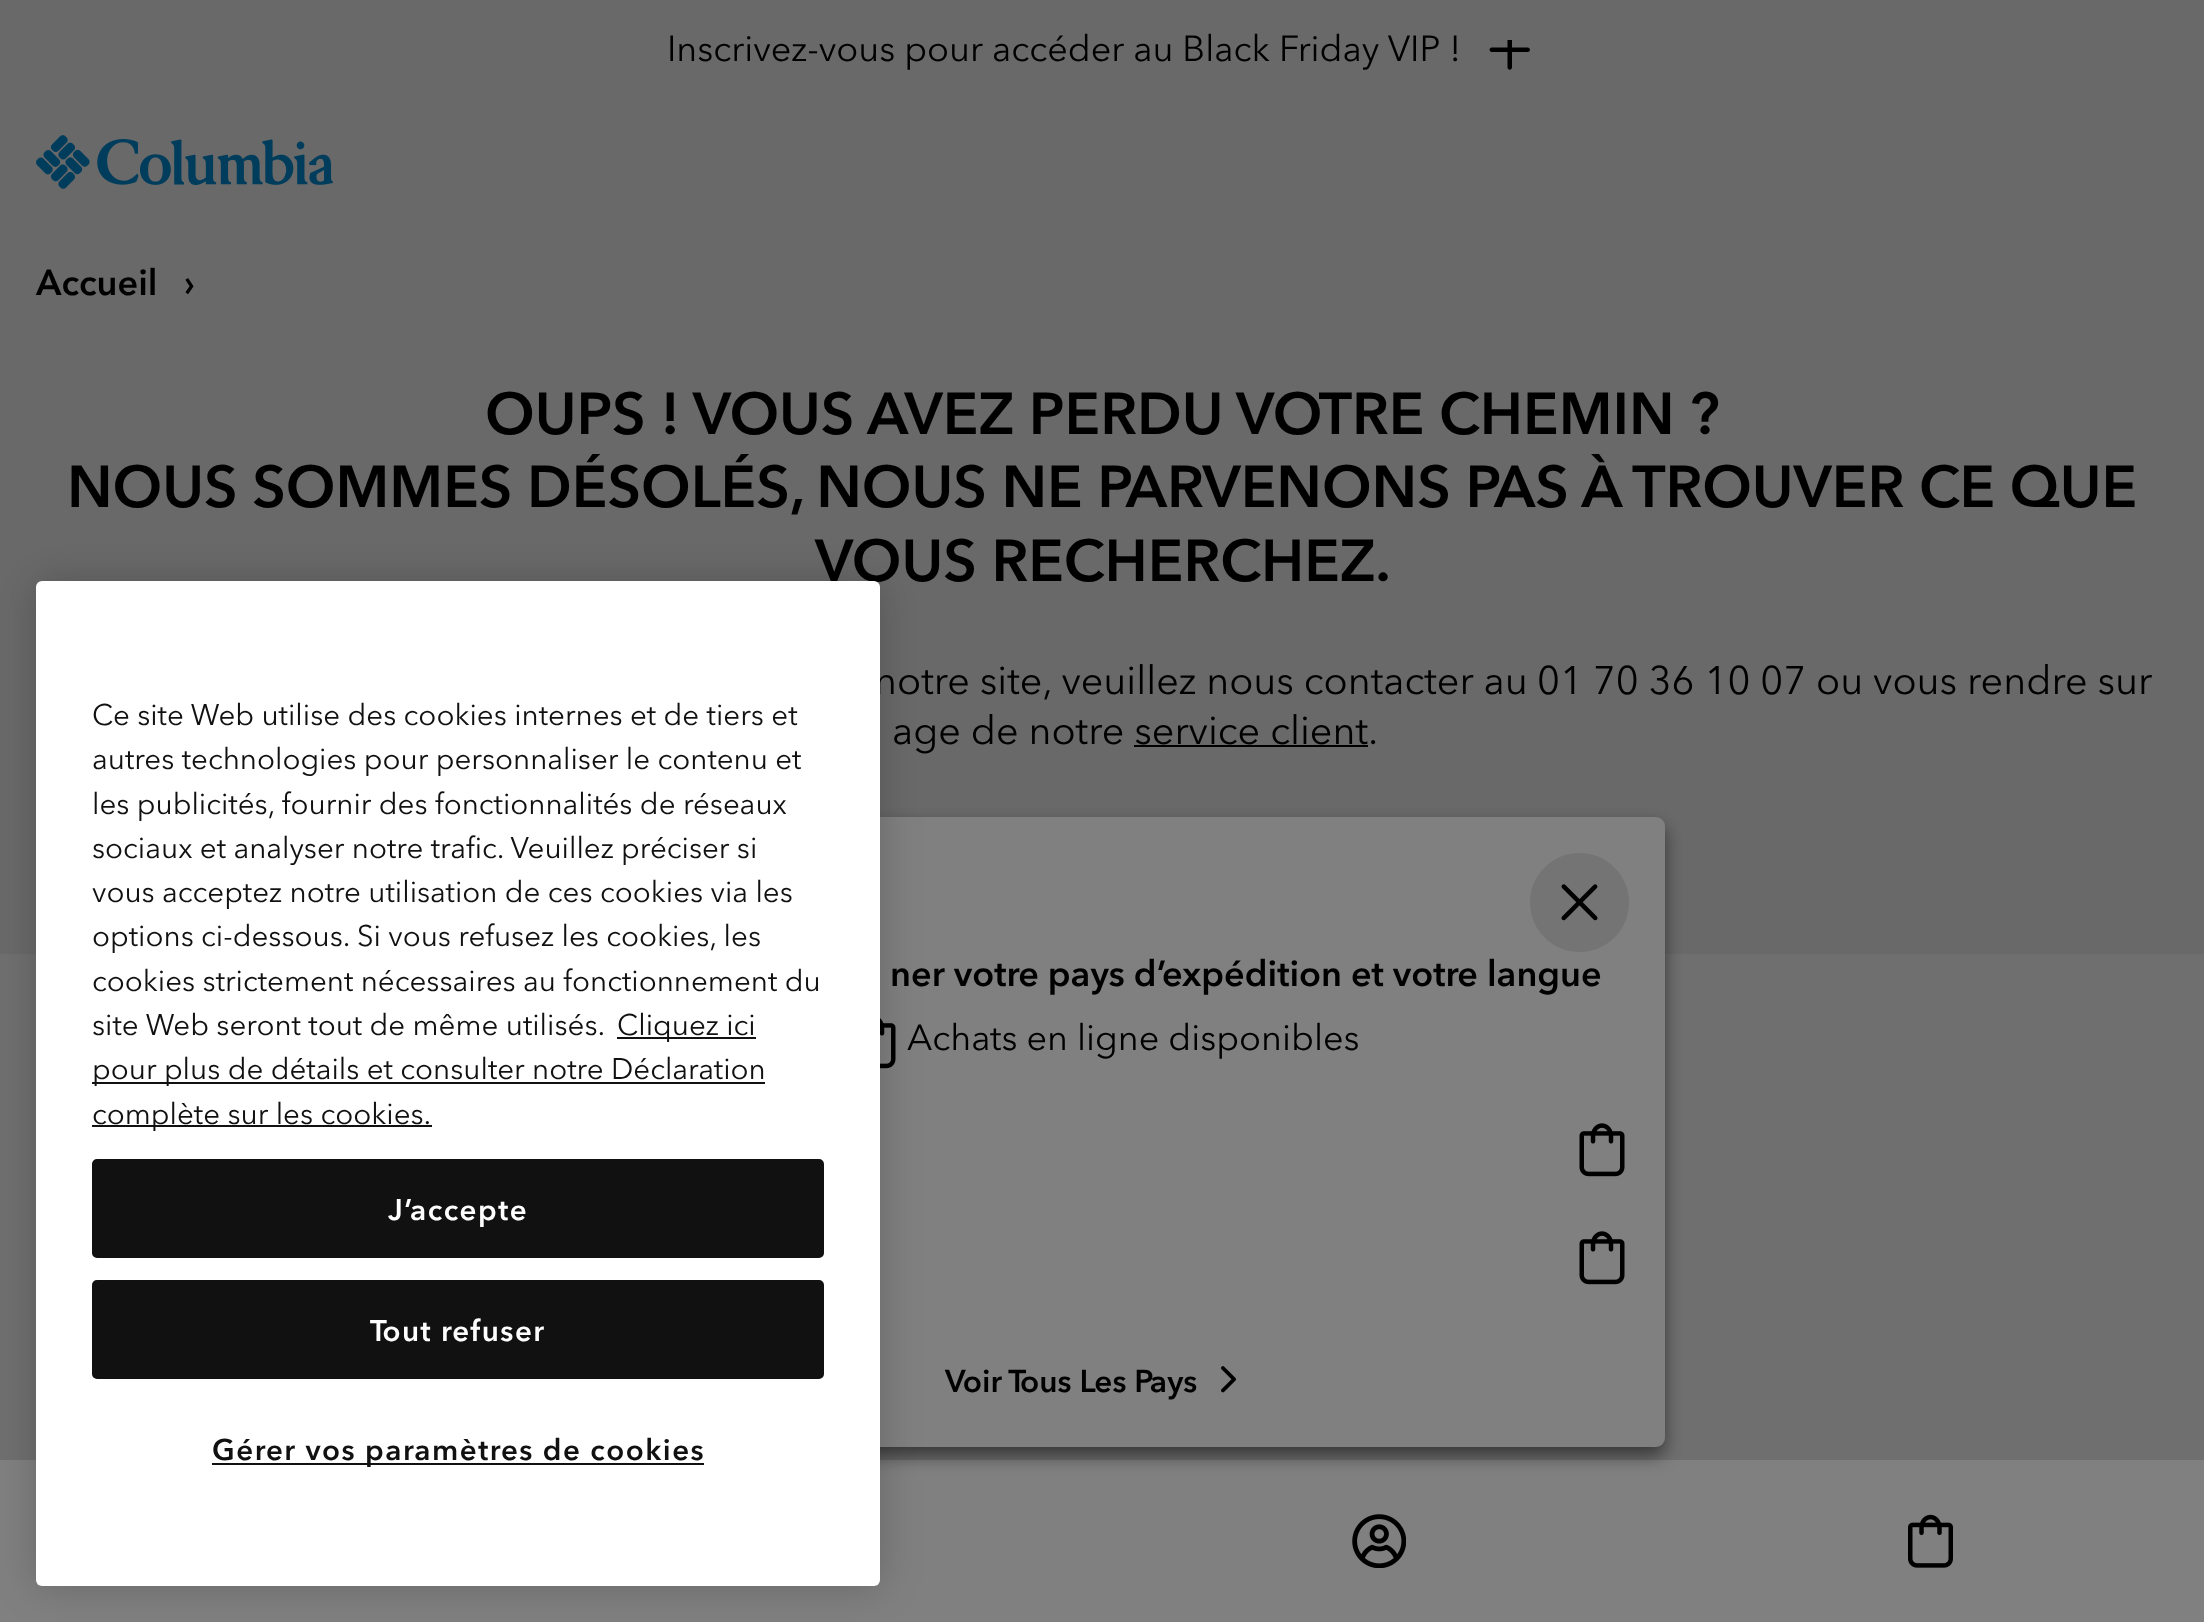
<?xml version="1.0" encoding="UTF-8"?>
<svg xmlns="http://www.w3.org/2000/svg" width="2204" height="1622">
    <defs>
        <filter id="blur1" x="-50%" y="-200%" width="200%" height="500%"><feGaussianBlur stdDeviation="9"/></filter>
        <filter id="blur2" x="-50%" y="-200%" width="200%" height="500%"><feGaussianBlur stdDeviation="20"/></filter>
    </defs>
    <rect width="100%" height="100%" fill="#696969"/>
    <text x="667" y="61" font-family="Avenir Next" font-size="36" fill="#000000">Inscrivez-vous pour accéder au Black Friday VIP !</text>
    <image x="1489" y="40" width="41" height="30" href="img_01.png"/>
    <image x="36" y="135" width="297" height="54" href="img_02.png"/>
    <rect x="0" y="1460" width="2204" height="162" fill="#808080"/>
    <image x="1352" y="1514" width="54" height="54" href="img_03.png"/>
    <image x="1908" y="1514" width="45" height="54" href="img_04.png"/>
    <text x="36" y="295" font-family="Avenir Next" font-size="36" font-weight="600" fill="#000000">Accueil</text>
    <text x="184" y="295" font-family="Avenir Next" font-size="36" font-weight="600" fill="#000000">›</text>
    <text x="485" y="434" font-family="Avenir Next" font-size="58.5" font-weight="600" fill="#000000">OUPS ! VOUS AVEZ PERDU VOTRE CHEMIN ?</text>
    <text x="67" y="507" font-family="Avenir Next" font-size="58.5" font-weight="600" fill="#000000">NOUS SOMMES DÉSOLÉS, NOUS NE PARVENONS PAS À TROUVER CE QUE</text>
    <text x="815" y="581" font-family="Avenir Next" font-size="58.5" font-weight="600" fill="#000000">VOUS RECHERCHEZ.</text>
    <text x="874" y="694" font-family="Avenir Next" font-size="39.6" fill="#000000">notre site, veuillez nous contacter au</text>
    <text x="1537" y="694" font-family="Avenir Next" font-size="39.6" fill="#000000">01 70 36 10 07 ou vous rendre sur</text>
    <text x="892" y="744" font-family="Avenir Next" font-size="39.6" fill="#000000">age de notre service client.</text>
    <rect x="1134" y="745" width="234" height="2" fill="#000000"/>
    <rect x="0" y="954" width="2204" height="506" fill="#6F6F6F"/>
    <rect x="540" y="826" width="1125" height="630" rx="9" fill="#000000" fill-opacity="0.5" filter="url(#blur1)"/>
    <rect x="540" y="817" width="1125" height="630" rx="9" fill="#808080"/>
    <image x="880" y="1018" width="16" height="51" href="img_06.png"/>
    <rect x="36" y="581" width="844" height="1005" rx="6" fill="#000000" fill-opacity="0.2" filter="url(#blur2)"/>
    <rect x="36" y="581" width="844" height="1005" rx="6" fill="#FFFFFF"/>
    <text font-family="Avenir Next" font-size="29.5" fill="#111111">
        <tspan x="92" y="725">Ce site Web utilise des cookies internes et de tiers et</tspan>
        <tspan x="92" y="769">autres technologies pour personnaliser le contenu et</tspan>
        <tspan x="92" y="814">les publicités, fournir des fonctionnalités de réseaux</tspan>
        <tspan x="92" y="858">sociaux et analyser notre trafic. Veuillez préciser si</tspan>
        <tspan x="92" y="902">vous acceptez notre utilisation de ces cookies via les</tspan>
        <tspan x="92" y="946">options ci-dessous. Si vous refusez les cookies, les</tspan>
        <tspan x="92" y="991">cookies strictement nécessaires au fonctionnement du</tspan>
        <tspan x="92" y="1035">site Web seront tout de même utilisés.</tspan>
    </text>
    <rect x="617" y="1037" width="139" height="2" fill="#111111"/>
    <text x="617" y="1035" font-family="Avenir Next" font-size="29.5" fill="#111111">Cliquez ici</text>
    <rect x="92" y="1082" width="673" height="2" fill="#111111"/>
    <text x="92" y="1079" font-family="Avenir Next" font-size="29.5" fill="#111111">pour plus de détails et consulter notre Déclaration</text>
    <rect x="92" y="1125" width="340" height="2" fill="#111111"/>
    <text x="92" y="1124" font-family="Avenir Next" font-size="29.5" fill="#111111">complète sur les cookies.</text>
    <rect x="93" y="1160" width="730" height="97" rx="4" fill="#111111" stroke="#111111" stroke-width="2"/>
    <text x="388" y="1220" font-family="Avenir Next" font-size="29.5" font-weight="600" letter-spacing="1.5" fill="#FFFFFF">J’accepte</text>
    <rect x="93" y="1281" width="730" height="97" rx="4" fill="#111111" stroke="#111111" stroke-width="2"/>
    <text x="370" y="1341" font-family="Avenir Next" font-size="29.5" font-weight="600" letter-spacing="1.5" fill="#FFFFFF">Tout refuser</text>
    <rect x="212" y="1463" width="492" height="2" fill="#111111"/>
    <text x="212" y="1460" font-family="Avenir Next" font-size="29.5" font-weight="600" letter-spacing="1.5" fill="#111111">Gérer vos paramètres de cookies</text>
    <circle cx="1579.5" cy="902.5" r="49.5" fill="#747474"/>
    <image x="1561" y="884" width="37" height="37" href="img_05.png"/>
    <text x="890" y="986" font-family="Avenir Next" font-size="36" font-weight="600" fill="#000000">ner votre pays d’expédition et votre langue</text>
    <text x="907" y="1050" font-family="Avenir Next" font-size="36" fill="#000000">Achats en ligne disponibles</text>
    <image x="1579" y="1123" width="46" height="54" href="img_07.png"/>
    <image x="1579" y="1231" width="46" height="54" href="img_07.png"/>
    <text x="945" y="1392" font-family="Avenir Next" font-size="31.5" font-weight="600" fill="#000000">Voir Tous Les Pays</text>
    <image x="1221" y="1366" width="15" height="27" href="img_08.png"/>
</svg>
